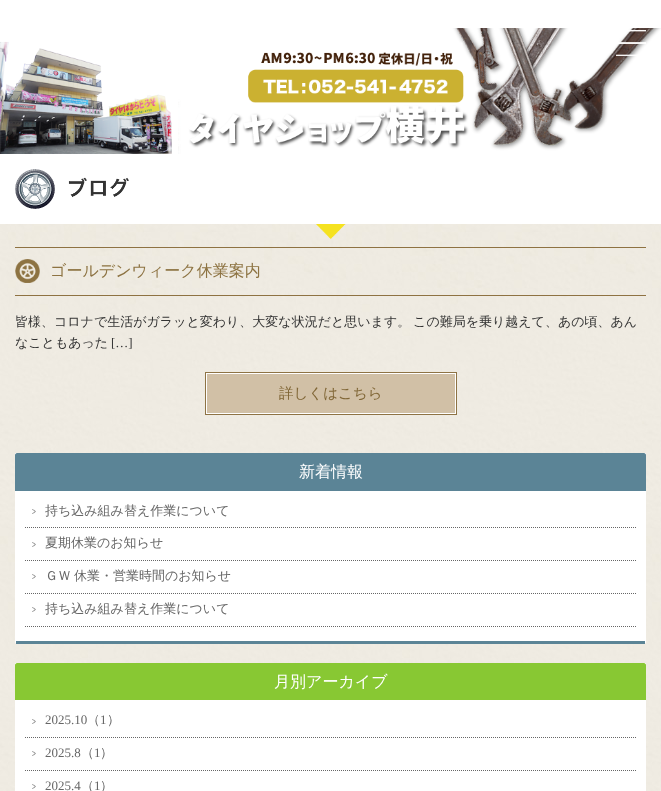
<?xml version="1.0" encoding="UTF-8"?>
<svg xmlns="http://www.w3.org/2000/svg" width="661" height="791">
    <rect width="100%" height="100%" fill="#FFFFFF"/>
    <image x="0" y="28" width="661" height="126" href="img_01.png"/>
    <image x="616" y="30" width="30" height="26" href="img_02.png"/>
    <image x="15" y="169" width="114" height="40" href="img_03.png"/>
    <image x="0" y="224" width="661" height="567" href="img_04.png"/>
    <image x="316" y="224" width="30" height="15" href="img_05.png"/>
    <image x="15" y="259" width="25" height="24" href="img_06.png"/>
    <rect x="15" y="247" width="631" height="1" fill="#8E7242"/>
    <rect x="15" y="295" width="631" height="1" fill="#8E7242"/>
    <text x="50" y="276" font-family="WenQuanYi Zen Hei" font-size="16" font-weight="500" fill="#8D7342">ゴールデンウィーク休業案内</text>
    <text font-family="WenQuanYi Zen Hei" font-size="13" font-weight="500" fill="#333333">
        <tspan x="15" y="326" word-spacing="-1">皆様、コロナで生活がガラッと変わり、大変な状況だと思います。 この難局を乗り越えて、あの頃、あん</tspan>
        <tspan x="15" y="347">なこともあった</tspan>
    </text>
    <text x="111" y="347" font-family="Liberation Serif" font-size="13" fill="#333333">[…]</text>
    <rect x="205.5" y="372.5" width="251" height="42" fill="none" stroke="#8E7344"/>
    <rect x="206.5" y="373.5" width="249" height="40" fill="#D1C0A6" stroke="#FFFFFF"/>
    <text x="279" y="398" font-family="WenQuanYi Zen Hei" font-size="14.5" font-weight="500" fill="#806636">詳しくはこちら</text>
    <path d="M 15 453 H 646 V 642 C 646 643 645 644 644 644 H 17 C 16 644 15 643 15 642 Z" fill="#FFFFFF"/>
    <rect x="16" y="641" width="629" height="3" fill="#5B8496"/>
    <path d="M 17 453 H 644 C 645 453 646 454 646 455 V 491 H 15 V 455 C 15 454 16 453 17 453 Z" fill="#5B8496"/>
    <text x="299" y="477" font-family="WenQuanYi Zen Hei" font-size="16" font-weight="500" fill="#FFFFFF">新着情報</text>
    <path d="M 25 527.5 H 636" fill="none" stroke="#666666" stroke-dasharray="1 1"/>
    <image x="32" y="509" width="4" height="5" href="img_07.png"/>
    <text x="45" y="515" font-family="WenQuanYi Zen Hei" font-size="13" font-weight="500" fill="#666666">持ち込み組み替え作業について</text>
    <path d="M 25 560.5 H 636" fill="none" stroke="#666666" stroke-dasharray="1 1"/>
    <image x="32" y="542" width="4" height="5" href="img_07.png"/>
    <text x="45" y="547" font-family="WenQuanYi Zen Hei" font-size="13" font-weight="500" fill="#666666">夏期休業のお知らせ</text>
    <path d="M 25 593.5 H 636" fill="none" stroke="#666666" stroke-dasharray="1 1"/>
    <image x="32" y="574" width="4" height="5" href="img_07.png"/>
    <text x="45" y="580" word-spacing="-1" font-family="WenQuanYi Zen Hei" font-size="13" font-weight="500" fill="#666666">ＧＷ 休業・営業時間のお知らせ</text>
    <path d="M 25 626.5 H 636" fill="none" stroke="#666666" stroke-dasharray="1 1"/>
    <image x="32" y="607" width="4" height="5" href="img_07.png"/>
    <text x="45" y="613" font-family="WenQuanYi Zen Hei" font-size="13" font-weight="500" fill="#666666">持ち込み組み替え作業について</text>
    <rect x="15" y="663" width="631" height="128" fill="#FFFFFF"/>
    <path d="M 17 663 H 644 C 645 663 646 664 646 665 V 700 H 15 V 665 C 15 664 16 663 17 663 Z" fill="#88C833"/>
    <text x="274" y="687" font-family="WenQuanYi Zen Hei" font-size="16" font-weight="500" fill="#FFFFFF">月別アーカイブ</text>
    <path d="M 25 737.5 H 636" fill="none" stroke="#666666" stroke-dasharray="1 1"/>
    <image x="32" y="719" width="4" height="5" href="img_07.png"/>
    <text x="45" y="724" font-family="Liberation Serif" font-size="13" fill="#666666">2025.10</text>
    <text x="87" y="724" font-family="WenQuanYi Zen Hei" font-size="13" font-weight="500" fill="#666666">（</text>
    <text x="100" y="724" font-family="Liberation Serif" font-size="13" fill="#666666">1</text>
    <text x="107" y="724" font-family="WenQuanYi Zen Hei" font-size="13" font-weight="500" fill="#666666">）</text>
    <path d="M 25 770.5 H 636" fill="none" stroke="#666666" stroke-dasharray="1 1"/>
    <image x="32" y="751" width="4" height="5" href="img_07.png"/>
    <text x="45" y="757" font-family="Liberation Serif" font-size="13" fill="#666666">2025.8</text>
    <text x="81" y="757" font-family="WenQuanYi Zen Hei" font-size="13" font-weight="500" fill="#666666">（</text>
    <text x="94" y="757" font-family="Liberation Serif" font-size="13" fill="#666666">1</text>
    <text x="100" y="757" font-family="WenQuanYi Zen Hei" font-size="13" font-weight="500" fill="#666666">）</text>
    <image x="32" y="784" width="4" height="5" href="img_07.png"/>
    <text x="45" y="790" font-family="Liberation Serif" font-size="13" fill="#666666">2025.4</text>
    <text x="81" y="790" font-family="WenQuanYi Zen Hei" font-size="13" font-weight="500" fill="#666666">（</text>
    <text x="94" y="790" font-family="Liberation Serif" font-size="13" fill="#666666">1</text>
    <text x="100" y="790" font-family="WenQuanYi Zen Hei" font-size="13" font-weight="500" fill="#666666">）</text>
</svg>
